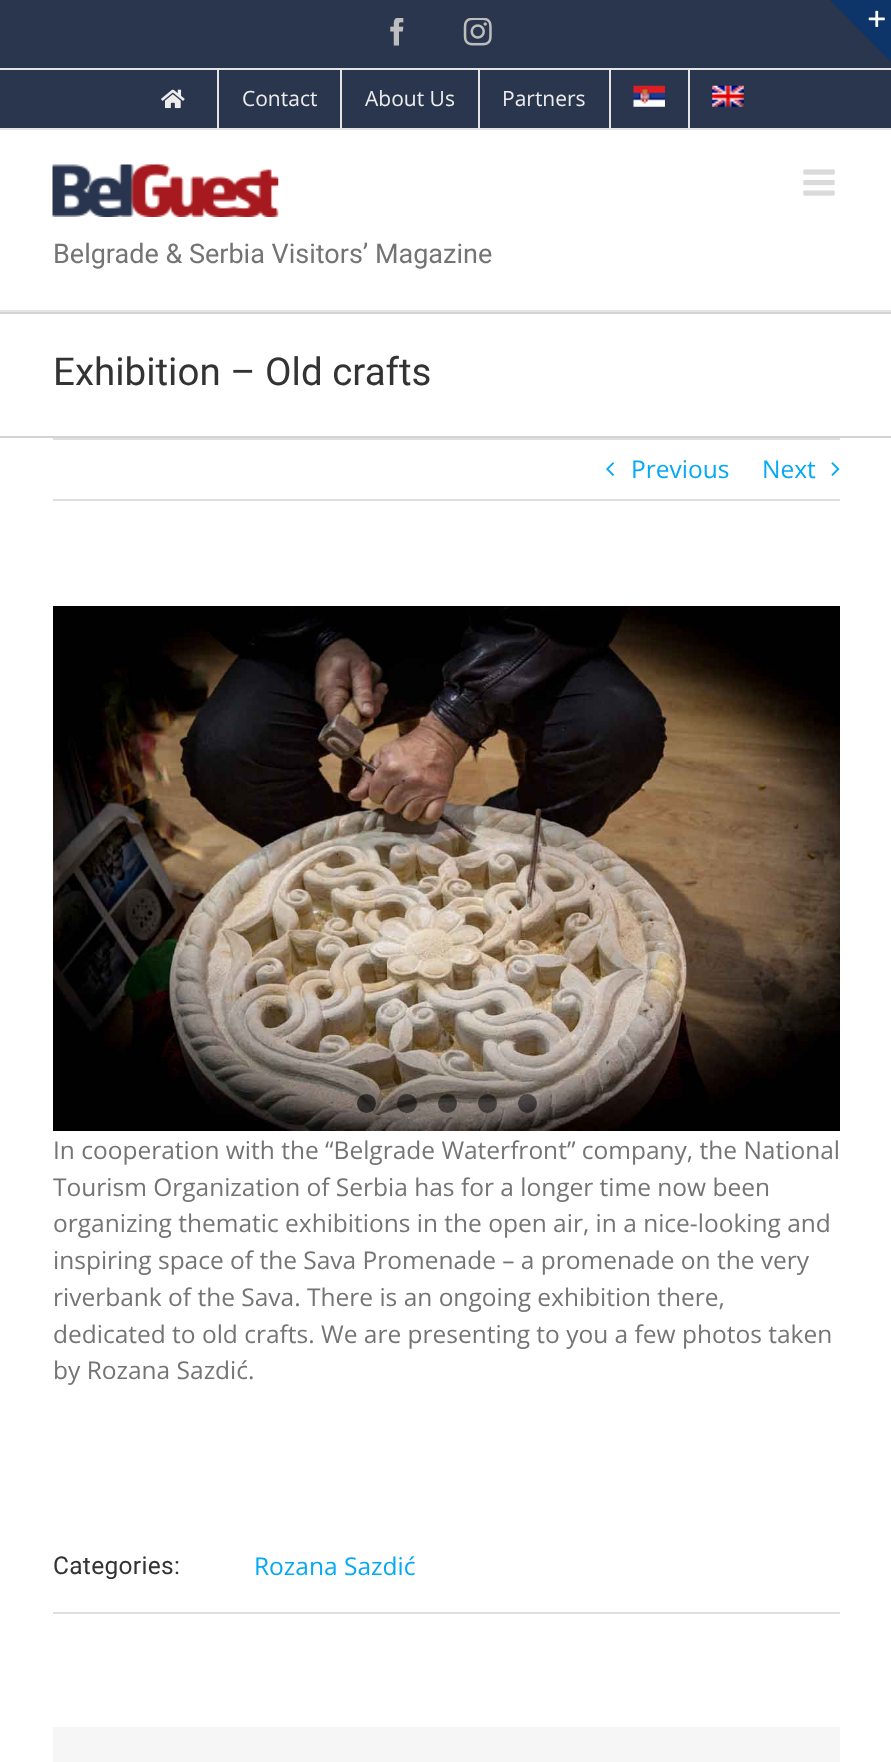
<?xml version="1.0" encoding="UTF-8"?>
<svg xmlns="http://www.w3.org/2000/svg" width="891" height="1762">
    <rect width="100%" height="100%" fill="#FFFFFF"/>
    <rect x="0" y="0" width="891" height="128" fill="#29364D"/>
    <path d="M 830 0 H 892 V 63 Z" fill="#0D3569"/>
    <image x="868" y="10" width="17" height="17" href="img_01.png"/>
    <rect x="0" y="128" width="891" height="2" fill="#E5E5E5"/>
    <rect x="0" y="68" width="891" height="2" fill="#E5E5E5"/>
    <image x="390" y="18" width="14" height="28" href="img_02.png"/>
    <image x="463" y="18" width="29" height="28" href="img_03.png"/>
    <image x="161" y="89" width="24" height="20" href="img_04.png"/>
    <rect x="217" y="70" width="2" height="58" fill="#E5E5E5"/>
    <text x="242" y="106" font-family="Open Sans" font-size="21" fill="#EDEDED">Contact</text>
    <rect x="340" y="70" width="2" height="58" fill="#E5E5E5"/>
    <text x="365" y="106" font-family="Open Sans" font-size="21" fill="#EDEDED">About Us</text>
    <rect x="478" y="70" width="2" height="58" fill="#E5E5E5"/>
    <text x="502" y="106" font-family="Open Sans" font-size="21" fill="#EDEDED">Partners</text>
    <rect x="609" y="70" width="2" height="58" fill="#E5E5E5"/>
    <image x="633" y="85" width="32" height="22" href="img_05.png"/>
    <rect x="688" y="70" width="2" height="58" fill="#E5E5E5"/>
    <image x="712" y="85" width="32" height="22" href="img_06.png"/>
    <rect x="0" y="310" width="891" height="2" fill="#E5E5E5"/>
    <image x="803" y="169" width="32" height="27" href="img_07.png"/>
    <image x="52" y="164" width="227" height="53" href="img_08.png"/>
    <text x="53" y="263" font-family="Roboto" font-size="27" fill="#747474">Belgrade &amp; Serbia Visitors’ Magazine</text>
    <rect x="0" y="312" width="891" height="2" fill="#D2D3D4"/>
    <rect x="0" y="436" width="891" height="2" fill="#D2D3D4"/>
    <text x="53" y="385" font-family="Roboto" font-size="38.5" fill="#333333">Exhibition – Old crafts</text>
    <rect x="53" y="438" width="787" height="2" fill="#E0DEDE"/>
    <rect x="53" y="499" width="787" height="2" fill="#E0DEDE"/>
    <image x="606" y="462" width="8" height="14" href="img_09.png"/>
    <text x="631" y="478" font-family="Open Sans" font-size="24.5" fill="#03A9F4">Previous</text>
    <text x="762" y="478" font-family="Open Sans" font-size="24.5" fill="#03A9F4">Next</text>
    <image x="831" y="462" width="9" height="14" href="img_10.png"/>
    <image x="53" y="606" width="787" height="525" href="img_11.png"/>
    <circle cx="366.5" cy="1103.5" r="9.5" fill="#000000" fill-opacity="0.6"/>
    <rect x="397" y="1094" width="20" height="19" rx="9.5" fill="#000000" fill-opacity="0.5"/>
    <circle cx="447.5" cy="1103.5" r="9.5" fill="#000000" fill-opacity="0.5"/>
    <circle cx="487.5" cy="1103.5" r="9.5" fill="#000000" fill-opacity="0.5"/>
    <circle cx="527.5" cy="1103.5" r="9.5" fill="#000000" fill-opacity="0.5"/>
    <text font-family="Open Sans" font-size="24.5" fill="#747474">
        <tspan x="53" y="1159">In cooperation with the “Belgrade Waterfront” company, the National</tspan>
        <tspan x="53" y="1196">Tourism Organization of Serbia has for a longer time now been</tspan>
        <tspan x="53" y="1232">organizing thematic exhibitions in the open air, in a nice-looking and</tspan>
        <tspan x="53" y="1269">inspiring space of the Sava Promenade – a promenade on the very</tspan>
        <tspan x="53" y="1306">riverbank of the Sava. There is an ongoing exhibition there,</tspan>
        <tspan x="53" y="1343">dedicated to old crafts. We are presenting to you a few photos taken</tspan>
        <tspan x="53" y="1379">by Rozana Sazdić.</tspan>
    </text>
    <rect x="53" y="1612" width="787" height="2" fill="#E0DEDE"/>
    <text x="53" y="1574" font-family="Roboto" font-size="24.5" letter-spacing="0.3" fill="#333333">Categories:</text>
    <text x="254" y="1575" font-family="Open Sans" font-size="24.5" fill="#03A9F4">Rozana Sazdić</text>
    <rect x="53" y="1727" width="787" height="35" fill="#F6F6F6"/>
</svg>
